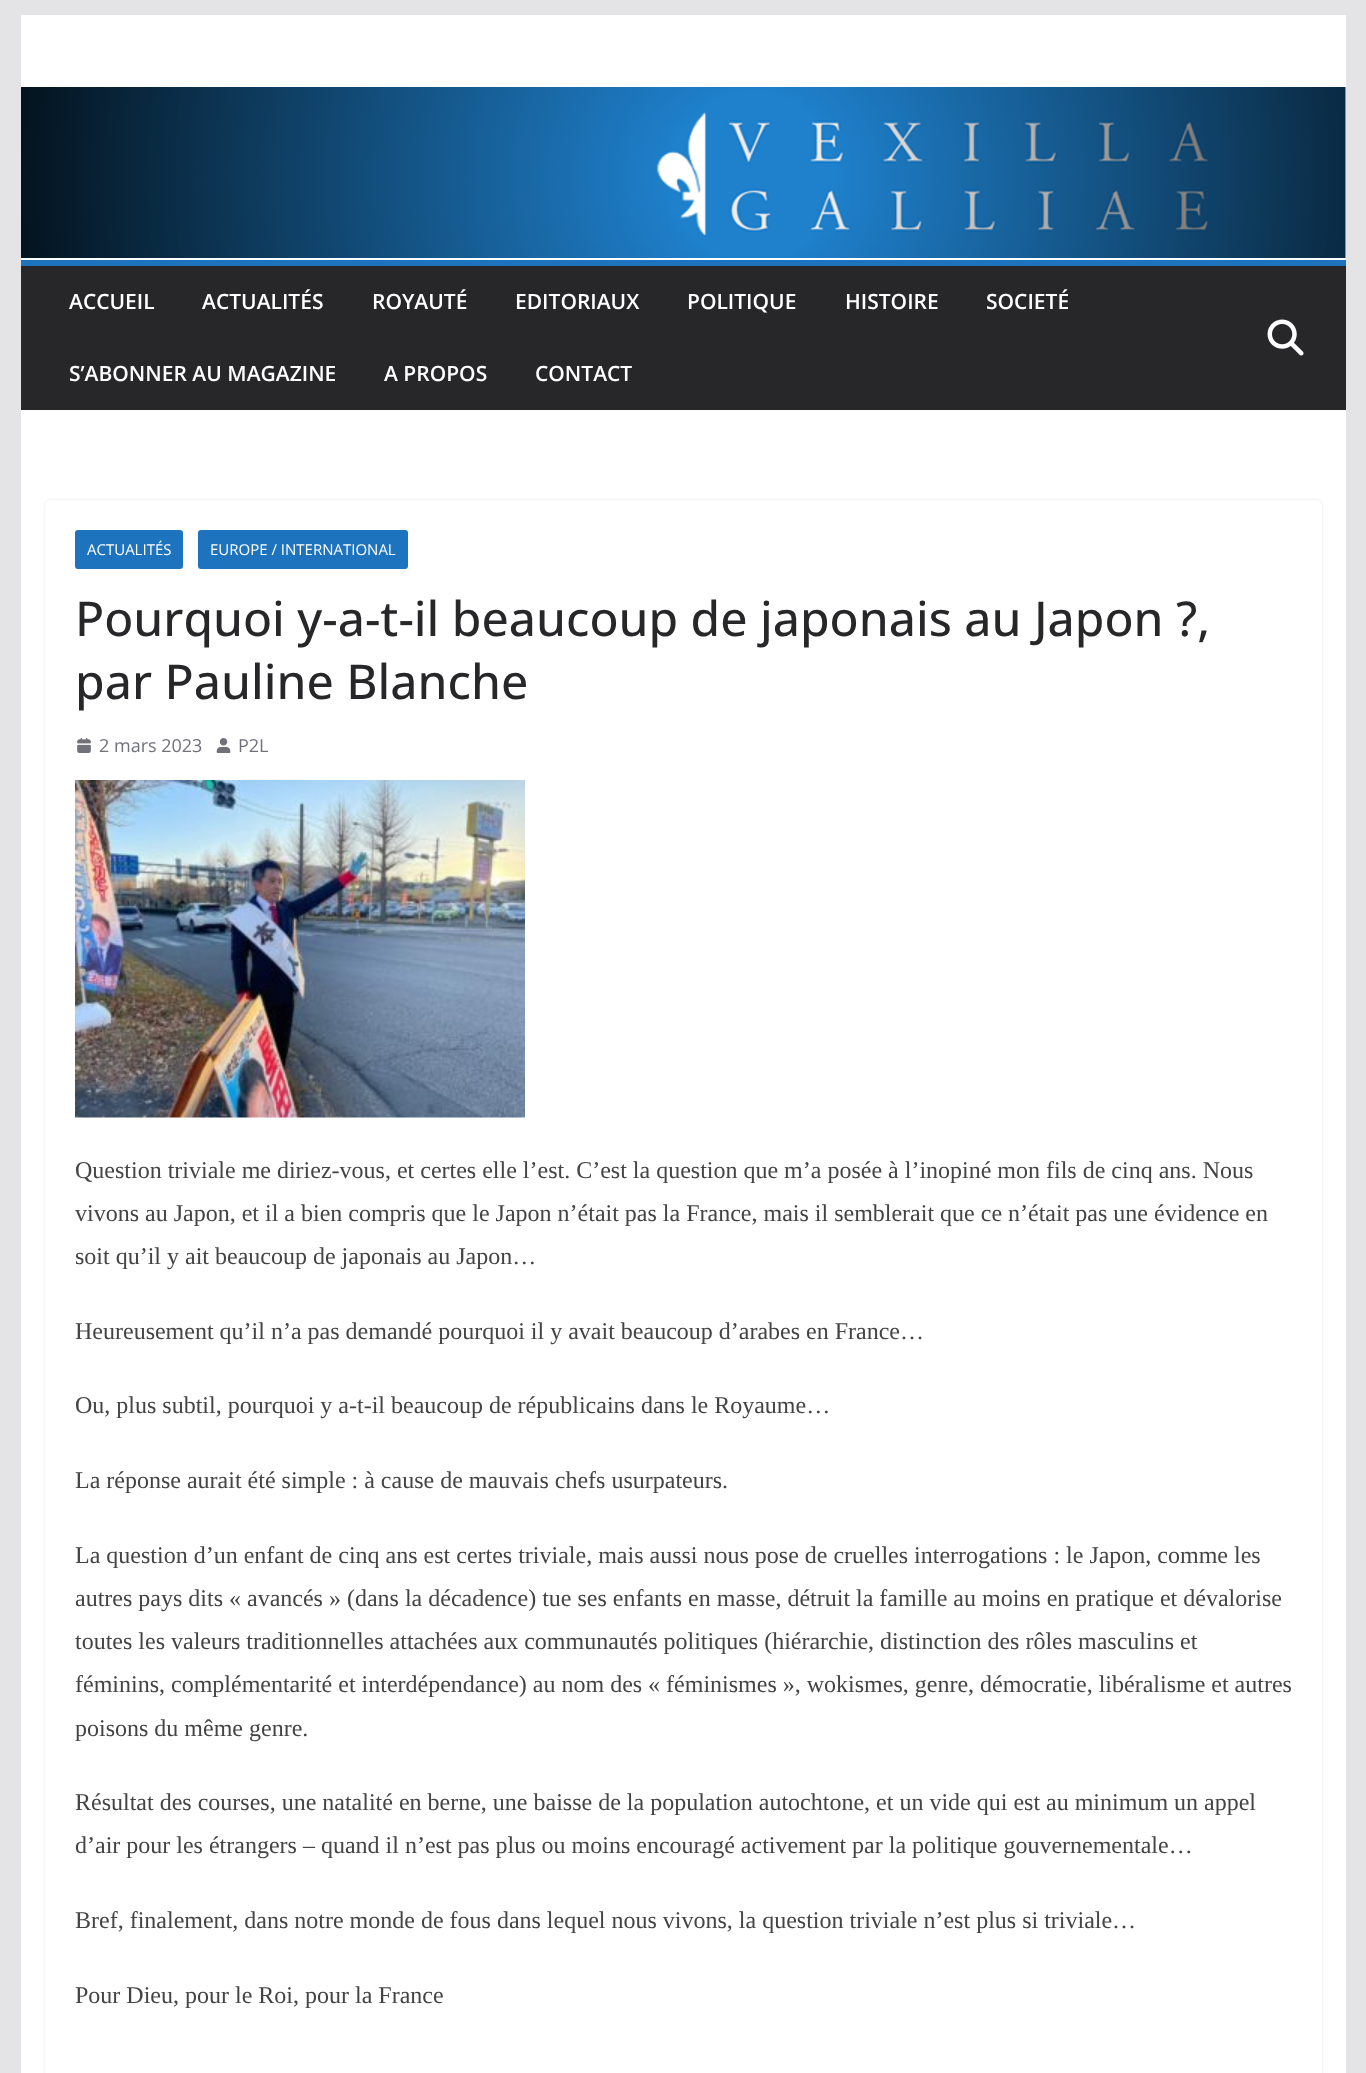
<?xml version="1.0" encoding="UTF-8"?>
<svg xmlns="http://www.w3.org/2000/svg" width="1366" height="2073">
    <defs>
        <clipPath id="clip1"><path d="M 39 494 H 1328 V 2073 H 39 Z M 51 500 H 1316 C 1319.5 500 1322 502.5 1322 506 V 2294 C 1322 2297.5 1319.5 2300 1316 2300 H 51 C 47.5 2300 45 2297.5 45 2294 V 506 C 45 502.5 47.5 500 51 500 Z" clip-rule="evenodd"/></clipPath>
        <filter id="blur1" x="-50%" y="-200%" width="200%" height="500%"><feGaussianBlur stdDeviation="1.5"/></filter>
    </defs>
    <rect width="100%" height="100%" fill="#E4E4E7"/>
    <rect x="21" y="15" width="1325" height="245" fill="#FFFFFF"/>
    <image x="21" y="87" width="1325" height="171" href="img_01.png"/>
    <rect x="21" y="266" width="1325" height="144" fill="#27272A"/>
    <rect x="21" y="260" width="1325" height="6" fill="#1E73BE"/>
    <text x="69" y="309" font-family="Open Sans" font-size="21" font-weight="600" fill="#FFFFFF">ACCUEIL</text>
    <text x="202" y="309" font-family="Open Sans" font-size="21" font-weight="600" fill="#FFFFFF">ACTUALITÉS</text>
    <text x="372" y="309" font-family="Open Sans" font-size="21" font-weight="600" fill="#FFFFFF">ROYAUTÉ</text>
    <text x="515" y="309" font-family="Open Sans" font-size="21" font-weight="600" fill="#FFFFFF">EDITORIAUX</text>
    <text x="687" y="309" font-family="Open Sans" font-size="21" font-weight="600" fill="#FFFFFF">POLITIQUE</text>
    <text x="845" y="309" font-family="Open Sans" font-size="21" font-weight="600" fill="#FFFFFF">HISTOIRE</text>
    <text x="986" y="309" font-family="Open Sans" font-size="21" font-weight="600" fill="#FFFFFF">SOCIETÉ</text>
    <text x="69" y="381" font-family="Open Sans" font-size="21" font-weight="600" fill="#FFFFFF">S’ABONNER AU MAGAZINE</text>
    <text x="384" y="381" font-family="Open Sans" font-size="21" font-weight="600" fill="#FFFFFF">A PROPOS</text>
    <text x="535" y="381" font-family="Open Sans" font-size="21" font-weight="600" fill="#FFFFFF">CONTACT</text>
    <image x="1267" y="319" width="37" height="37" href="img_02.png"/>
    <rect x="21" y="410" width="1325" height="1663" fill="#FFFFFF"/>
    <g clip-path="url(#clip1)">
        <rect x="45" y="500" width="1277" height="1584" rx="6" fill="#E4E4E7" filter="url(#blur1)"/>
    </g>
    <rect x="75" y="530" width="108" height="39" rx="3" fill="#1E73BE"/>
    <text x="87" y="555" font-family="Open Sans" font-size="15" fill="#FFFFFF">ACTUALITÉS</text>
    <rect x="198" y="530" width="210" height="39" rx="3" fill="#1E73BE"/>
    <text x="210" y="555" font-family="Open Sans" font-size="15" fill="#FFFFFF">EUROPE / INTERNATIONAL</text>
    <text font-family="Open Sans" font-size="48" font-weight="500" fill="#27272A">
        <tspan x="75" y="636">Pourquoi y-a-t-il beaucoup de japonais au Japon ?,</tspan>
        <tspan x="75" y="699">par Pauline Blanche</tspan>
    </text>
    <image x="77" y="738" width="14" height="15" href="img_03.png"/>
    <text x="99" y="752" font-family="Open Sans" font-size="18" fill="#71717A">2 mars 2023</text>
    <image x="216" y="738" width="15" height="15" href="img_04.png"/>
    <text x="238" y="752" font-family="Open Sans" font-size="18" fill="#71717A">P2L</text>
    <image x="75" y="780" width="450" height="338" href="img_05.png"/>
    <text font-family="Liberation Serif" font-size="24" fill="#444444">
        <tspan x="75" y="1178">Question triviale me diriez-vous, et certes elle l’est. C’est la question que m’a posée à l’inopiné mon fils de cinq ans. Nous</tspan>
        <tspan x="75" y="1221">vivons au Japon, et il a bien compris que le Japon n’était pas la France, mais il semblerait que ce n’était pas une évidence en</tspan>
        <tspan x="75" y="1264">soit qu’il y ait beaucoup de japonais au Japon…</tspan>
    </text>
    <text x="75" y="1339" font-family="Liberation Serif" font-size="24" fill="#444444">Heureusement qu’il n’a pas demandé pourquoi il y avait beaucoup d’arabes en France…</text>
    <text x="75" y="1413" font-family="Liberation Serif" font-size="24" fill="#444444">Ou, plus subtil, pourquoi y a-t-il beaucoup de républicains dans le Royaume…</text>
    <text x="75" y="1488" font-family="Liberation Serif" font-size="24" fill="#444444">La réponse aurait été simple : à cause de mauvais chefs usurpateurs.</text>
    <text font-family="Liberation Serif" font-size="24" fill="#444444">
        <tspan x="75" y="1563">La question d’un enfant de cinq ans est certes triviale, mais aussi nous pose de cruelles interrogations : le Japon, comme les</tspan>
        <tspan x="75" y="1606">autres pays dits « avancés » (dans la décadence) tue ses enfants en masse, détruit la famille au moins en pratique et dévalorise</tspan>
        <tspan x="75" y="1649">toutes les valeurs traditionnelles attachées aux communautés politiques (hiérarchie, distinction des rôles masculins et</tspan>
        <tspan x="75" y="1692">féminins, complémentarité et interdépendance) au nom des « féminismes », wokismes, genre, démocratie, libéralisme et autres</tspan>
        <tspan x="75" y="1736">poisons du même genre.</tspan>
    </text>
    <text font-family="Liberation Serif" font-size="24" fill="#444444">
        <tspan x="75" y="1810">Résultat des courses, une natalité en berne, une baisse de la population autochtone, et un vide qui est au minimum un appel</tspan>
        <tspan x="75" y="1853">d’air pour les étrangers – quand il n’est pas plus ou moins encouragé activement par la politique gouvernementale…</tspan>
    </text>
    <text x="75" y="1928" font-family="Liberation Serif" font-size="24" fill="#444444">Bref, finalement, dans notre monde de fous dans lequel nous vivons, la question triviale n’est plus si triviale…</text>
    <text x="75" y="2003" font-family="Liberation Serif" font-size="24" fill="#444444">Pour Dieu, pour le Roi, pour la France</text>
</svg>
